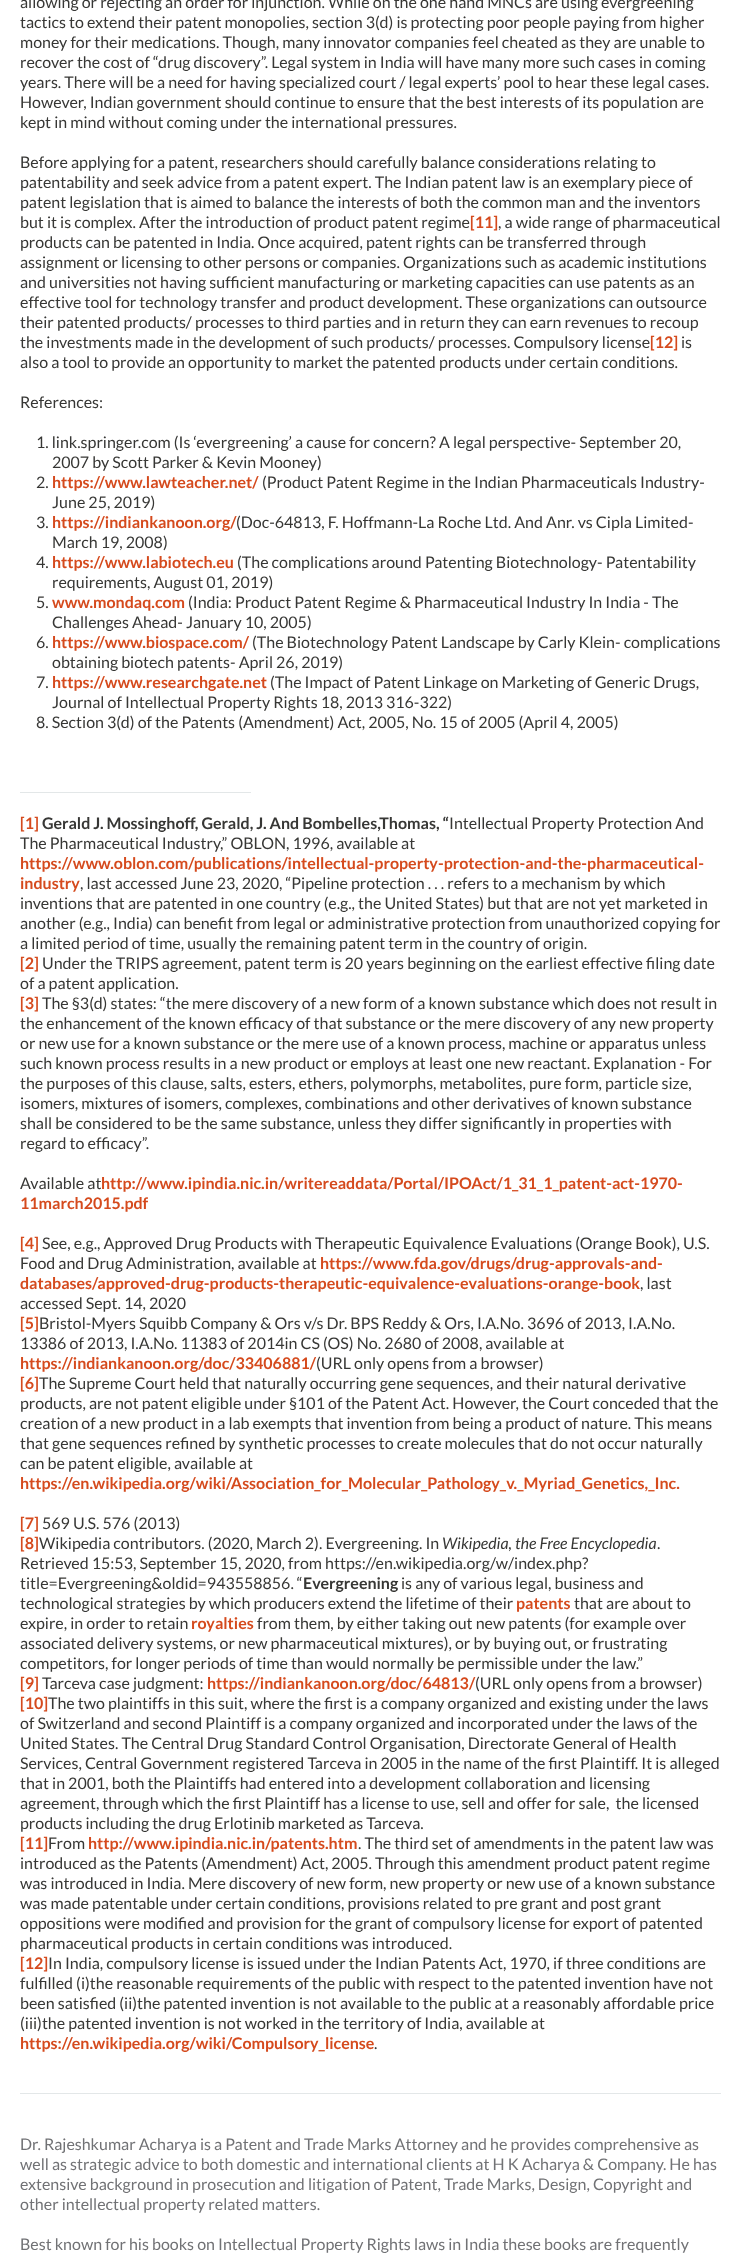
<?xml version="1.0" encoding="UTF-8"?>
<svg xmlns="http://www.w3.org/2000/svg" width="741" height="2261">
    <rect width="100%" height="100%" fill="#FFFFFF"/>
    <text font-family="Lato" font-size="16" fill="#373735">
        <tspan x="20" y="8">allowing or rejecting an order for injunction. While on the one hand MNCs are using evergreening</tspan>
        <tspan x="20" y="28">tactics to extend their patent monopolies, section 3(d) is protecting poor people paying from higher</tspan>
        <tspan x="20" y="48">money for their medications. Though, many innovator companies feel cheated as they are unable to</tspan>
        <tspan x="20" y="68">recover the cost of “drug discovery”. Legal system in India will have many more such cases in coming</tspan>
        <tspan x="20" y="88">years. There will be a need for having specialized court / legal experts’ pool to hear these legal cases.</tspan>
        <tspan x="20" y="108">However, Indian government should continue to ensure that the best interests of its population are</tspan>
        <tspan x="20" y="128">kept in mind without coming under the international pressures.</tspan>
    </text>
    <text font-family="Lato" font-size="16" fill="#373735">
        <tspan x="20" y="168">Before applying for a patent, researchers should carefully balance considerations relating to</tspan>
        <tspan x="20" y="188">patentability and seek advice from a patent expert. The Indian patent law is an exemplary piece of</tspan>
        <tspan x="20" y="208">patent legislation that is aimed to balance the interests of both the common man and the inventors</tspan>
        <tspan x="20" y="228">but it is complex. After the introduction of product patent regime</tspan>
    </text>
    <text x="470" y="228" font-family="Lato" font-size="16" font-weight="700" fill="#D54A1D">[11]</text>
    <text x="498" y="228" font-family="Lato" font-size="16" fill="#373735">, a wide range of pharmaceutical</text>
    <text font-family="Lato" font-size="16" fill="#373735">
        <tspan x="20" y="248">products can be patented in India. Once acquired, patent rights can be transferred through</tspan>
        <tspan x="20" y="268">assignment or licensing to other persons or companies. Organizations such as academic institutions</tspan>
        <tspan x="20" y="288">and universities not having sufficient manufacturing or marketing capacities can use patents as an</tspan>
        <tspan x="20" y="308">effective tool for technology transfer and product development. These organizations can outsource</tspan>
        <tspan x="20" y="328">their patented products/ processes to third parties and in return they can earn revenues to recoup</tspan>
        <tspan x="20" y="348">the investments made in the development of such products/ processes. Compulsory license</tspan>
    </text>
    <text x="650" y="348" font-family="Lato" font-size="16" font-weight="700" fill="#D54A1D">[12]</text>
    <text x="681" y="348" font-family="Lato" font-size="16" fill="#373735">is</text>
    <text x="20" y="368" font-family="Lato" font-size="16" fill="#373735">also a tool to provide an opportunity to market the patented products under certain conditions.</text>
    <text x="20" y="408" font-family="Lato" font-size="16" fill="#373735">References:</text>
    <text x="36" y="448" font-family="Lato" font-size="16" fill="#373735">1. link.springer.com (Is ‘evergreening’ a cause for concern? A legal perspective- September 20,</text>
    <text x="52" y="468" font-family="Lato" font-size="16" fill="#373735">2007 by Scott Parker &amp; Kevin Mooney)</text>
    <text x="36" y="488" font-family="Lato" font-size="16" fill="#373735">2.</text>
    <text x="52" y="488" font-family="Lato" font-size="16" font-weight="700" fill="#D54A1D">https://www.lawteacher.net/</text>
    <text x="262" y="488" font-family="Lato" font-size="16" fill="#373735">(Product Patent Regime in the Indian Pharmaceuticals Industry-</text>
    <text x="52" y="508" font-family="Lato" font-size="16" fill="#373735">June 25, 2019)</text>
    <text x="36" y="528" font-family="Lato" font-size="16" fill="#373735">3.</text>
    <text x="52" y="528" font-family="Lato" font-size="16" font-weight="700" fill="#D54A1D">https://indiankanoon.org/</text>
    <text x="236" y="528" font-family="Lato" font-size="16" fill="#373735">(Doc-64813, F. Hoffmann-La Roche Ltd. And Anr. vs Cipla Limited-</text>
    <text x="52" y="548" font-family="Lato" font-size="16" fill="#373735">March 19, 2008)</text>
    <text x="36" y="568" font-family="Lato" font-size="16" fill="#373735">4.</text>
    <text x="52" y="568" font-family="Lato" font-size="16" font-weight="700" fill="#D54A1D">https://www.labiotech.eu</text>
    <text x="237" y="568" font-family="Lato" font-size="16" fill="#373735">(The complications around Patenting Biotechnology- Patentability</text>
    <text x="52" y="588" font-family="Lato" font-size="16" fill="#373735">requirements, August 01, 2019)</text>
    <text x="36" y="608" font-family="Lato" font-size="16" fill="#373735">5.</text>
    <text x="52" y="608" font-family="Lato" font-size="16" font-weight="700" fill="#D54A1D">www.mondaq.com</text>
    <text x="188" y="608" font-family="Lato" font-size="16" fill="#373735">(India: Product Patent Regime &amp; Pharmaceutical Industry In India - The</text>
    <text x="52" y="628" font-family="Lato" font-size="16" fill="#373735">Challenges Ahead- January 10, 2005)</text>
    <text x="36" y="648" font-family="Lato" font-size="16" fill="#373735">6.</text>
    <text x="52" y="648" font-family="Lato" font-size="16" font-weight="700" fill="#D54A1D">https://www.biospace.com/</text>
    <text x="252" y="648" font-family="Lato" font-size="16" fill="#373735">(The Biotechnology Patent Landscape by Carly Klein- complications</text>
    <text x="52" y="668" font-family="Lato" font-size="16" fill="#373735">obtaining biotech patents- April 26, 2019)</text>
    <text x="36" y="688" font-family="Lato" font-size="16" fill="#373735">7.</text>
    <text x="52" y="688" font-family="Lato" font-size="16" font-weight="700" fill="#D54A1D">https://www.researchgate.net</text>
    <text x="270" y="688" font-family="Lato" font-size="16" fill="#373735">(The Impact of Patent Linkage on Marketing of Generic Drugs,</text>
    <text x="52" y="708" font-family="Lato" font-size="16" fill="#373735">Journal of Intellectual Property Rights 18, 2013 316-322)</text>
    <text x="36" y="728" font-family="Lato" font-size="16" fill="#373735">8. Section 3(d) of the Patents (Amendment) Act, 2005, No. 15 of 2005 (April 4, 2005)</text>
    <rect x="20" y="792" width="231" height="1" fill="#E3E7E8"/>
    <text x="20" y="829" font-family="Lato" font-size="16" font-weight="700" fill="#D54A1D">[1]</text>
    <text x="42" y="829" font-family="Lato" font-size="16" font-weight="700" fill="#373735">Gerald J. Mossinghoff, Gerald, J. And Bombelles,Thomas, “</text>
    <text x="449" y="829" font-family="Lato" font-size="16" fill="#373735">Intellectual Property Protection And</text>
    <text x="20" y="849" font-family="Lato" font-size="16" fill="#373735">The Pharmaceutical Industry,” OBLON, 1996, available at</text>
    <text font-family="Lato" font-size="16" font-weight="700" fill="#D54A1D">
        <tspan x="20" y="869">https://www.oblon.com/publications/intellectual-property-protection-and-the-pharmaceutical-</tspan>
        <tspan x="20" y="889">industry</tspan>
    </text>
    <text x="80" y="889" font-family="Lato" font-size="16" fill="#373735">, last accessed June 23, 2020, “Pipeline protection . . . refers to a mechanism by which</text>
    <text font-family="Lato" font-size="16" fill="#373735">
        <tspan x="20" y="909">inventions that are patented in one country (e.g., the United States) but that are not yet marketed in</tspan>
        <tspan x="20" y="929">another (e.g., India) can benefit from legal or administrative protection from unauthorized copying for</tspan>
        <tspan x="20" y="949">a limited period of time, usually the remaining patent term in the country of origin.</tspan>
    </text>
    <text x="20" y="969" font-family="Lato" font-size="16" font-weight="700" fill="#D54A1D">[2]</text>
    <text x="42" y="969" font-family="Lato" font-size="16" fill="#373735">Under the TRIPS agreement, patent term is 20 years beginning on the earliest effective filing date</text>
    <text x="20" y="989" font-family="Lato" font-size="16" fill="#373735">of a patent application.</text>
    <text x="20" y="1009" font-family="Lato" font-size="16" font-weight="700" fill="#D54A1D">[3]</text>
    <text x="42" y="1009" font-family="Lato" font-size="16" fill="#373735">The §3(d) states: “the mere discovery of a new form of a known substance which does not result in</text>
    <text font-family="Lato" font-size="16" fill="#373735">
        <tspan x="20" y="1029">the enhancement of the known efficacy of that substance or the mere discovery of any new property</tspan>
        <tspan x="20" y="1049">or new use for a known substance or the mere use of a known process, machine or apparatus unless</tspan>
        <tspan x="20" y="1069">such known process results in a new product or employs at least one new reactant. Explanation - For</tspan>
        <tspan x="20" y="1089">the purposes of this clause, salts, esters, ethers, polymorphs, metabolites, pure form, particle size,</tspan>
        <tspan x="20" y="1109">isomers, mixtures of isomers, complexes, combinations and other derivatives of known substance</tspan>
        <tspan x="20" y="1129">shall be considered to be the same substance, unless they differ significantly in properties with</tspan>
        <tspan x="20" y="1149">regard to efficacy”.</tspan>
    </text>
    <text x="20" y="1189" font-family="Lato" font-size="16" fill="#373735">Available at</text>
    <text x="101" y="1189" font-family="Lato" font-size="16" font-weight="700" fill="#D54A1D">http://www.ipindia.nic.in/writereaddata/Portal/IPOAct/1_31_1_patent-act-1970-</text>
    <text x="20" y="1209" font-family="Lato" font-size="16" font-weight="700" fill="#D54A1D">11march2015.pdf</text>
    <text x="20" y="1249" font-family="Lato" font-size="16" font-weight="700" fill="#D54A1D">[4]</text>
    <text x="42" y="1249" font-family="Lato" font-size="16" fill="#373735">See, e.g., Approved Drug Products with Therapeutic Equivalence Evaluations (Orange Book), U.S.</text>
    <text x="20" y="1269" font-family="Lato" font-size="16" fill="#373735">Food and Drug Administration, available at</text>
    <text x="320" y="1269" font-family="Lato" font-size="16" font-weight="700" fill="#D54A1D">https://www.fda.gov/drugs/drug-approvals-and-</text>
    <text x="20" y="1289" font-family="Lato" font-size="16" font-weight="700" fill="#D54A1D">databases/approved-drug-products-therapeutic-equivalence-evaluations-orange-book</text>
    <text x="640" y="1289" font-family="Lato" font-size="16" fill="#373735">, last</text>
    <text x="20" y="1309" font-family="Lato" font-size="16" fill="#373735">accessed Sept. 14, 2020</text>
    <text x="20" y="1329" font-family="Lato" font-size="16" font-weight="700" fill="#D54A1D">[5]</text>
    <text x="39" y="1329" font-family="Lato" font-size="16" fill="#373735">Bristol-Myers Squibb Company &amp; Ors v/s Dr. BPS Reddy &amp; Ors, I.A.No. 3696 of 2013, I.A.No.</text>
    <text x="20" y="1349" font-family="Lato" font-size="16" fill="#373735">13386 of 2013, I.A.No. 11383 of 2014in CS (OS) No. 2680 of 2008, available at</text>
    <text x="20" y="1369" font-family="Lato" font-size="16" font-weight="700" fill="#D54A1D">https://indiankanoon.org/doc/33406881/</text>
    <text x="316" y="1369" font-family="Lato" font-size="16" fill="#373735">(URL only opens from a browser)</text>
    <text x="20" y="1389" font-family="Lato" font-size="16" font-weight="700" fill="#D54A1D">[6]</text>
    <text x="39" y="1389" font-family="Lato" font-size="16" fill="#373735">The Supreme Court held that naturally occurring gene sequences, and their natural derivative</text>
    <text font-family="Lato" font-size="16" fill="#373735">
        <tspan x="20" y="1409">products, are not patent eligible under §101 of the Patent Act. However, the Court conceded that the</tspan>
        <tspan x="20" y="1429">creation of a new product in a lab exempts that invention from being a product of nature. This means</tspan>
        <tspan x="20" y="1449">that gene sequences refined by synthetic processes to create molecules that do not occur naturally</tspan>
        <tspan x="20" y="1469">can be patent eligible, available at</tspan>
    </text>
    <text x="20" y="1489" font-family="Lato" font-size="16" font-weight="700" fill="#D54A1D">https://en.wikipedia.org/wiki/Association_for_Molecular_Pathology_v._Myriad_Genetics,_Inc.</text>
    <text x="20" y="1529" font-family="Lato" font-size="16" font-weight="700" fill="#D54A1D">[7]</text>
    <text x="42" y="1529" font-family="Lato" font-size="16" fill="#373735">569 U.S. 576 (2013)</text>
    <text x="20" y="1549" font-family="Lato" font-size="16" font-weight="700" fill="#D54A1D">[8]</text>
    <text x="39" y="1549" font-family="Lato" font-size="16" fill="#373735">Wikipedia contributors. (2020, March 2). Evergreening. In</text>
    <text x="442" y="1549" font-family="Lato" font-size="16" font-style="italic" fill="#373735">Wikipedia, the Free Encyclopedia</text>
    <text x="657" y="1549" font-family="Lato" font-size="16" fill="#373735">.</text>
    <text font-family="Lato" font-size="16" fill="#373735">
        <tspan x="20" y="1569">Retrieved 15:53, September 15, 2020, from https://en.wikipedia.org/w/index.php?</tspan>
        <tspan x="20" y="1589">title=Evergreening&amp;oldid=943558856. “</tspan>
    </text>
    <text x="303" y="1589" font-family="Lato" font-size="16" font-weight="700" fill="#373735">Evergreening</text>
    <text x="401" y="1589" font-family="Lato" font-size="16" fill="#373735">is any of various legal, business and</text>
    <text x="20" y="1609" font-family="Lato" font-size="16" fill="#373735">technological strategies by which producers extend the lifetime of their</text>
    <text x="516" y="1609" font-family="Lato" font-size="16" font-weight="700" fill="#D54A1D">patents</text>
    <text x="574" y="1609" font-family="Lato" font-size="16" fill="#373735">that are about to</text>
    <text x="20" y="1629" font-family="Lato" font-size="16" fill="#373735">expire, in order to retain</text>
    <text x="191" y="1629" font-family="Lato" font-size="16" font-weight="700" fill="#D54A1D">royalties</text>
    <text x="257" y="1629" font-family="Lato" font-size="16" fill="#373735">from them, by either taking out new patents (for example over</text>
    <text font-family="Lato" font-size="16" fill="#373735">
        <tspan x="20" y="1649">associated delivery systems, or new pharmaceutical mixtures), or by buying out, or frustrating</tspan>
        <tspan x="20" y="1669">competitors, for longer periods of time than would normally be permissible under the law.”</tspan>
    </text>
    <text x="20" y="1689" font-family="Lato" font-size="16" font-weight="700" fill="#D54A1D">[9]</text>
    <text x="42" y="1689" font-family="Lato" font-size="16" fill="#373735">Tarceva case judgment:</text>
    <text x="207" y="1689" font-family="Lato" font-size="16" font-weight="700" fill="#D54A1D">https://indiankanoon.org/doc/64813/</text>
    <text x="475" y="1689" font-family="Lato" font-size="16" fill="#373735">(URL only opens from a browser)</text>
    <text x="20" y="1709" font-family="Lato" font-size="16" font-weight="700" fill="#D54A1D">[10]</text>
    <text x="48" y="1709" font-family="Lato" font-size="16" fill="#373735">The two plaintiffs in this suit, where the first is a company organized and existing under the laws</text>
    <text font-family="Lato" font-size="16" fill="#373735" xml:space="preserve"><tspan x="20" y="1729">of Switzerland and second Plaintiff is a company organized and incorporated under the laws of the</tspan><tspan x="20" y="1749">United States. The Central Drug Standard Control Organisation, Directorate General of Health</tspan><tspan x="20" y="1769">Services, Central Government registered Tarceva in 2005 in the name of the first Plaintiff. It is alleged</tspan><tspan x="20" y="1789">that in 2001, both the Plaintiffs had entered into a development collaboration and licensing</tspan><tspan x="20" y="1809">agreement, through which the first Plaintiff has a license to use, sell and offer for sale,  the licensed</tspan><tspan x="20" y="1829">products including the drug Erlotinib marketed as Tarceva.</tspan></text>
    <text x="20" y="1849" font-family="Lato" font-size="16" font-weight="700" fill="#D54A1D">[11]</text>
    <text x="48" y="1849" font-family="Lato" font-size="16" fill="#373735">From</text>
    <text x="88" y="1849" font-family="Lato" font-size="16" font-weight="700" fill="#D54A1D">http://www.ipindia.nic.in/patents.htm</text>
    <text x="358" y="1849" font-family="Lato" font-size="16" fill="#373735">. The third set of amendments in the patent law was</text>
    <text font-family="Lato" font-size="16" fill="#373735">
        <tspan x="20" y="1869">introduced as the Patents (Amendment) Act, 2005. Through this amendment product patent regime</tspan>
        <tspan x="20" y="1889">was introduced in India. Mere discovery of new form, new property or new use of a known substance</tspan>
        <tspan x="20" y="1909">was made patentable under certain conditions, provisions related to pre grant and post grant</tspan>
        <tspan x="20" y="1929">oppositions were modified and provision for the grant of compulsory license for export of patented</tspan>
        <tspan x="20" y="1949">pharmaceutical products in certain conditions was introduced.</tspan>
    </text>
    <text x="20" y="1969" font-family="Lato" font-size="16" font-weight="700" fill="#D54A1D">[12]</text>
    <text x="48" y="1969" font-family="Lato" font-size="16" fill="#373735">In India, compulsory license is issued under the Indian Patents Act, 1970, if three conditions are</text>
    <text font-family="Lato" font-size="16" fill="#373735">
        <tspan x="20" y="1989">fulfilled (i)the reasonable requirements of the public with respect to the patented invention have not</tspan>
        <tspan x="20" y="2009">been satisfied (ii)the patented invention is not available to the public at a reasonably affordable price</tspan>
        <tspan x="20" y="2029">(iii)the patented invention is not worked in the territory of India, available at</tspan>
    </text>
    <text x="20" y="2049" font-family="Lato" font-size="16" font-weight="700" fill="#D54A1D">https://en.wikipedia.org/wiki/Compulsory_license</text>
    <text x="374" y="2049" font-family="Lato" font-size="16" fill="#373735">.</text>
    <rect x="20" y="2093" width="701" height="1" fill="#E3E7E8"/>
    <text font-family="Lato" font-size="16" fill="#717275">
        <tspan x="20" y="2150">Dr. Rajeshkumar Acharya is a Patent and Trade Marks Attorney and he provides comprehensive as</tspan>
        <tspan x="20" y="2170">well as strategic advice to both domestic and international clients at H K Acharya &amp; Company. He has</tspan>
        <tspan x="20" y="2190">extensive background in prosecution and litigation of Patent, Trade Marks, Design, Copyright and</tspan>
        <tspan x="20" y="2210">other intellectual property related matters.</tspan>
    </text>
    <text x="20" y="2250" font-family="Lato" font-size="16" fill="#717275">Best known for his books on Intellectual Property Rights laws in India these books are frequently</text>
</svg>
